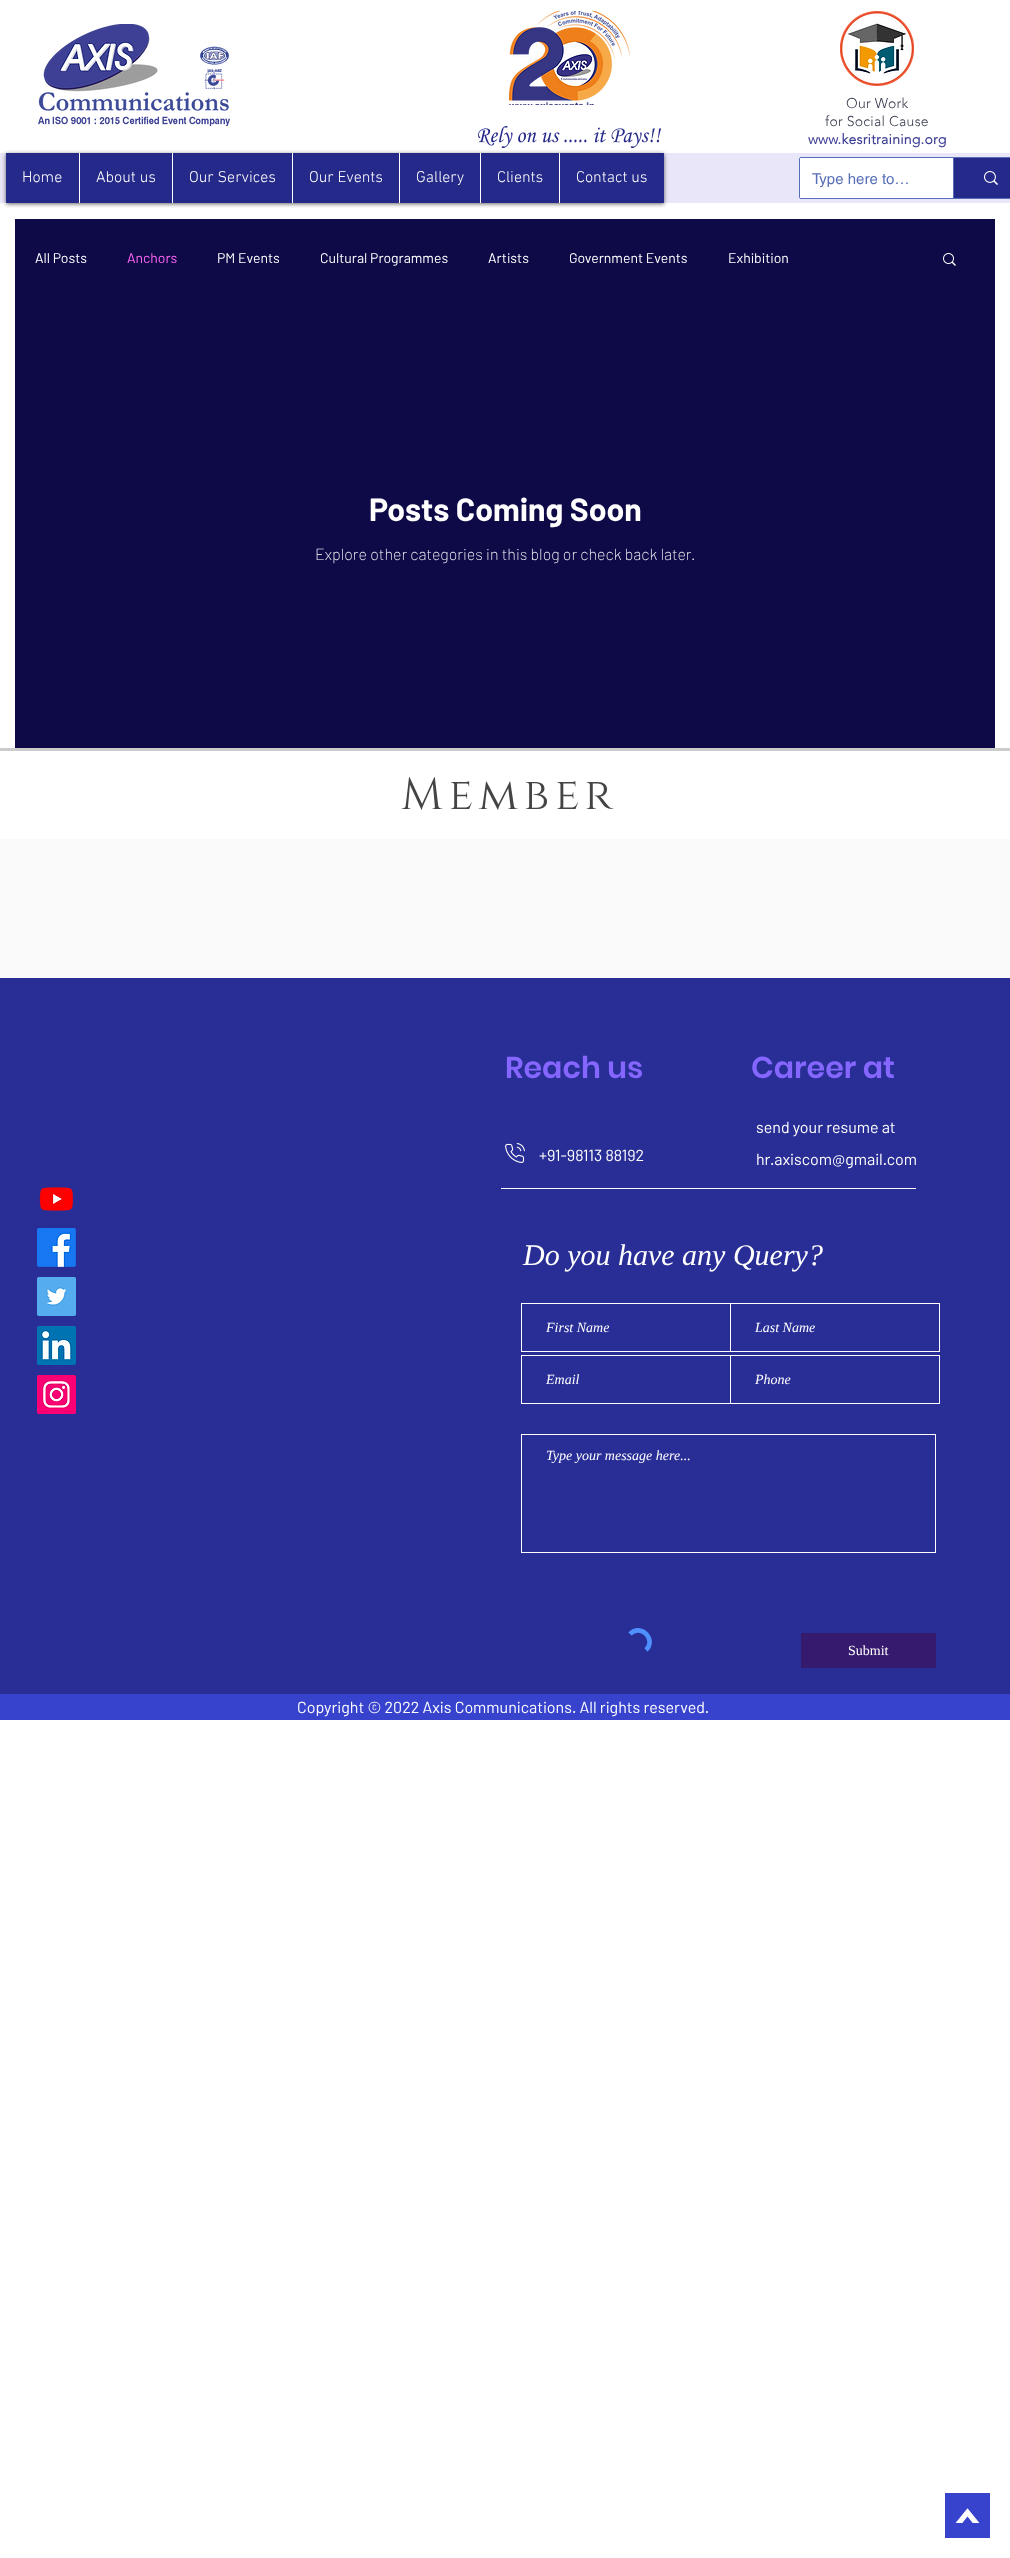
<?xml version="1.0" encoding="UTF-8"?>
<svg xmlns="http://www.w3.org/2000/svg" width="1010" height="2558">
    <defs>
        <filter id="blur1" x="-50%" y="-200%" width="200%" height="500%"><feGaussianBlur stdDeviation="2"/></filter>
    </defs>
    <rect width="100%" height="100%" fill="#FFFFFF"/>
    <image x="38" y="24" width="192" height="102" href="img_01.png"/>
    <image x="509" y="11" width="121" height="94" href="img_02.png"/>
    <image x="478" y="126" width="183" height="22" href="img_03.png"/>
    <image x="840" y="11" width="74" height="75" href="img_04.png"/>
    <text x="846" y="108" font-family="'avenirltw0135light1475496'" font-size="14" font-weight="300" letter-spacing="0.25" fill="#373B4D">Our Work</text>
    <text x="825" y="126" font-family="'avenirltw0135light1475496'" font-size="14" font-weight="300" letter-spacing="0.25" fill="#373B4D">for Social Cause</text>
    <text x="808" y="144" font-family="'avenirltw0135light1475496'" font-size="14" font-weight="700" letter-spacing="0.25" fill="#3E4096">www.kesritraining.org</text>
    <rect x="0" y="153" width="1010" height="50" fill="#E9E6F9"/>
    <rect x="6" y="154" width="658" height="50" fill="#000000" fill-opacity="0.6" filter="url(#blur1)"/>
    <rect x="6" y="153" width="658" height="50" fill="#252989"/>
    <text x="22" y="182" font-family="'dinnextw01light'" font-size="16" font-weight="300" fill="#FFFFFF">Home</text>
    <rect x="79" y="153" width="1" height="50" fill="#FFFFFF"/>
    <text x="96" y="182" font-family="'dinnextw01light'" font-size="16" font-weight="300" fill="#FFFFFF">About us</text>
    <rect x="172" y="153" width="1" height="50" fill="#FFFFFF"/>
    <text x="189" y="182" font-family="'dinnextw01light'" font-size="16" font-weight="300" fill="#FFFFFF">Our Services</text>
    <rect x="292" y="153" width="1" height="50" fill="#FFFFFF"/>
    <text x="309" y="182" font-family="'dinnextw01light'" font-size="16" font-weight="300" fill="#FFFFFF">Our Events</text>
    <rect x="399" y="153" width="1" height="50" fill="#FFFFFF"/>
    <text x="416" y="182" font-family="'dinnextw01light'" font-size="16" font-weight="300" fill="#FFFFFF">Gallery</text>
    <rect x="480" y="153" width="1" height="50" fill="#FFFFFF"/>
    <text x="497" y="182" font-family="'dinnextw01light'" font-size="16" font-weight="300" fill="#FFFFFF">Clients</text>
    <rect x="559" y="153" width="1" height="50" fill="#FFFFFF"/>
    <text x="576" y="182" font-family="'dinnextw01light'" font-size="16" font-weight="300" fill="#FFFFFF">Contact us</text>
    <rect x="799.5" y="157.5" width="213" height="41" rx="1.5" fill="none" stroke="#566FB8"/>
    <rect x="800" y="158" width="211" height="40" rx="1" fill="#FFFFFF"/>
    <text x="812" y="184" font-family="helvetica" font-size="15" fill="#566FB8">Type here to…</text>
    <rect x="954" y="158" width="56" height="40" fill="#252989"/>
    <rect x="953" y="158" width="1" height="40" fill="#566FB8"/>
    <image x="984" y="171" width="14" height="14" href="img_05.png"/>
    <rect x="15" y="219" width="980" height="529" fill="#0E0A48"/>
    <text x="35" y="263" font-family="Barlow" font-size="14" fill="#FFFFFF">All Posts</text>
    <text x="127" y="263" font-family="Barlow" font-size="14" fill="#FF66F5">Anchors</text>
    <text x="217" y="263" font-family="Barlow" font-size="14" fill="#FFFFFF">PM Events</text>
    <text x="320" y="263" font-family="Barlow" font-size="14" fill="#FFFFFF">Cultural Programmes</text>
    <text x="488" y="263" font-family="Barlow" font-size="14" fill="#FFFFFF">Artists</text>
    <text x="569" y="263" font-family="Barlow" font-size="14" fill="#FFFFFF">Government Events</text>
    <text x="728" y="263" font-family="Barlow" font-size="14" fill="#FFFFFF">Exhibition</text>
    <image x="943" y="253" width="13" height="13" href="img_06.png"/>
    <text x="369" y="521" font-family="Barlow" font-size="32" font-weight="700" fill="#FFFFFF">Posts Coming Soon</text>
    <text x="315" y="560" font-family="Barlow" font-size="16" font-weight="200" fill="#FFFFFF">Explore other categories in this blog or check back later.</text>
    <rect x="0" y="748" width="1010" height="3" fill="#CCCCCC"/>
    <text x="401" y="809" font-family="Cinzel" font-size="45" letter-spacing="5.5" fill="#444444">Member</text>
    <rect x="0" y="839" width="1010" height="139" fill="#FAFAFA"/>
    <rect x="0" y="978" width="1010" height="716" fill="#292E96"/>
    <text x="505" y="1078" font-family="Poppins" font-size="30" font-weight="600" fill="#8566FF">Reach us</text>
    <text x="751" y="1078" font-family="Poppins" font-size="30" font-weight="600" fill="#8566FF">Career at</text>
    <image x="505" y="1143" width="20" height="20" href="img_07.png"/>
    <text x="539" y="1161" font-family="Barlow" font-size="16" fill="#FFFFFF">+91-98113 88192</text>
    <text x="756" y="1133" font-family="Barlow" font-size="16" fill="#FFFFFF">send your resume at</text>
    <text x="756" y="1165" font-family="Barlow" font-size="16" fill="#FFFFFF">hr.axiscom@gmail.com</text>
    <image x="39" y="1187" width="35" height="24" href="img_08.png"/>
    <image x="37" y="1228" width="39" height="39" href="img_09.png"/>
    <image x="37" y="1277" width="39" height="39" href="img_10.png"/>
    <image x="37" y="1326" width="39" height="39" href="img_11.png"/>
    <image x="37" y="1375" width="39" height="39" href="img_12.png"/>
    <rect x="501" y="1188" width="415" height="1" fill="#FFFFFF"/>
    <text x="523" y="1265" font-family="Liberation Serif" font-size="30" font-style="italic" fill="#FFFFFF">Do you have any Query?</text>
    <rect x="521.5" y="1303.5" width="209" height="48" fill="none" stroke="#FFFFFF"/>
    <text x="546" y="1332" font-family="Liberation Serif" font-size="14" font-style="italic" fill="#FFFFFF">First Name</text>
    <rect x="730.5" y="1303.5" width="209" height="48" fill="none" stroke="#FFFFFF"/>
    <text x="755" y="1332" font-family="Liberation Serif" font-size="14" font-style="italic" fill="#FFFFFF">Last Name</text>
    <rect x="521.5" y="1355.5" width="209" height="48" fill="none" stroke="#FFFFFF"/>
    <text x="546" y="1384" font-family="Liberation Serif" font-size="14" font-style="italic" fill="#FFFFFF">Email</text>
    <rect x="730.5" y="1355.5" width="209" height="48" fill="none" stroke="#FFFFFF"/>
    <text x="755" y="1384" font-family="Liberation Serif" font-size="14" font-style="italic" fill="#FFFFFF">Phone</text>
    <rect x="521.5" y="1434.5" width="414" height="118" fill="none" stroke="#FFFFFF"/>
    <text x="546" y="1460" font-family="Liberation Serif" font-size="14" font-style="italic" fill="#FFFFFF">Type your message here...</text>
    <path d="M 630 1634 C 640.5 1623 657 1639.5 646 1650" fill="none" stroke="#4D90FE" stroke-width="4.6"/>
    <rect x="801" y="1633" width="135" height="35" fill="#351A6E"/>
    <text x="848" y="1655" font-family="Liberation Serif" font-size="14" fill="#FFFFFF">Submit</text>
    <rect x="0" y="1694" width="1010" height="26" fill="#3843CD"/>
    <text x="297" y="1713" font-family="Barlow" font-size="16" fill="#FFFFFF">Copyright © 2022 Axis Communications. All rights reserved.</text>
    <image x="945" y="2493" width="45" height="45" href="img_13.png"/>
</svg>
